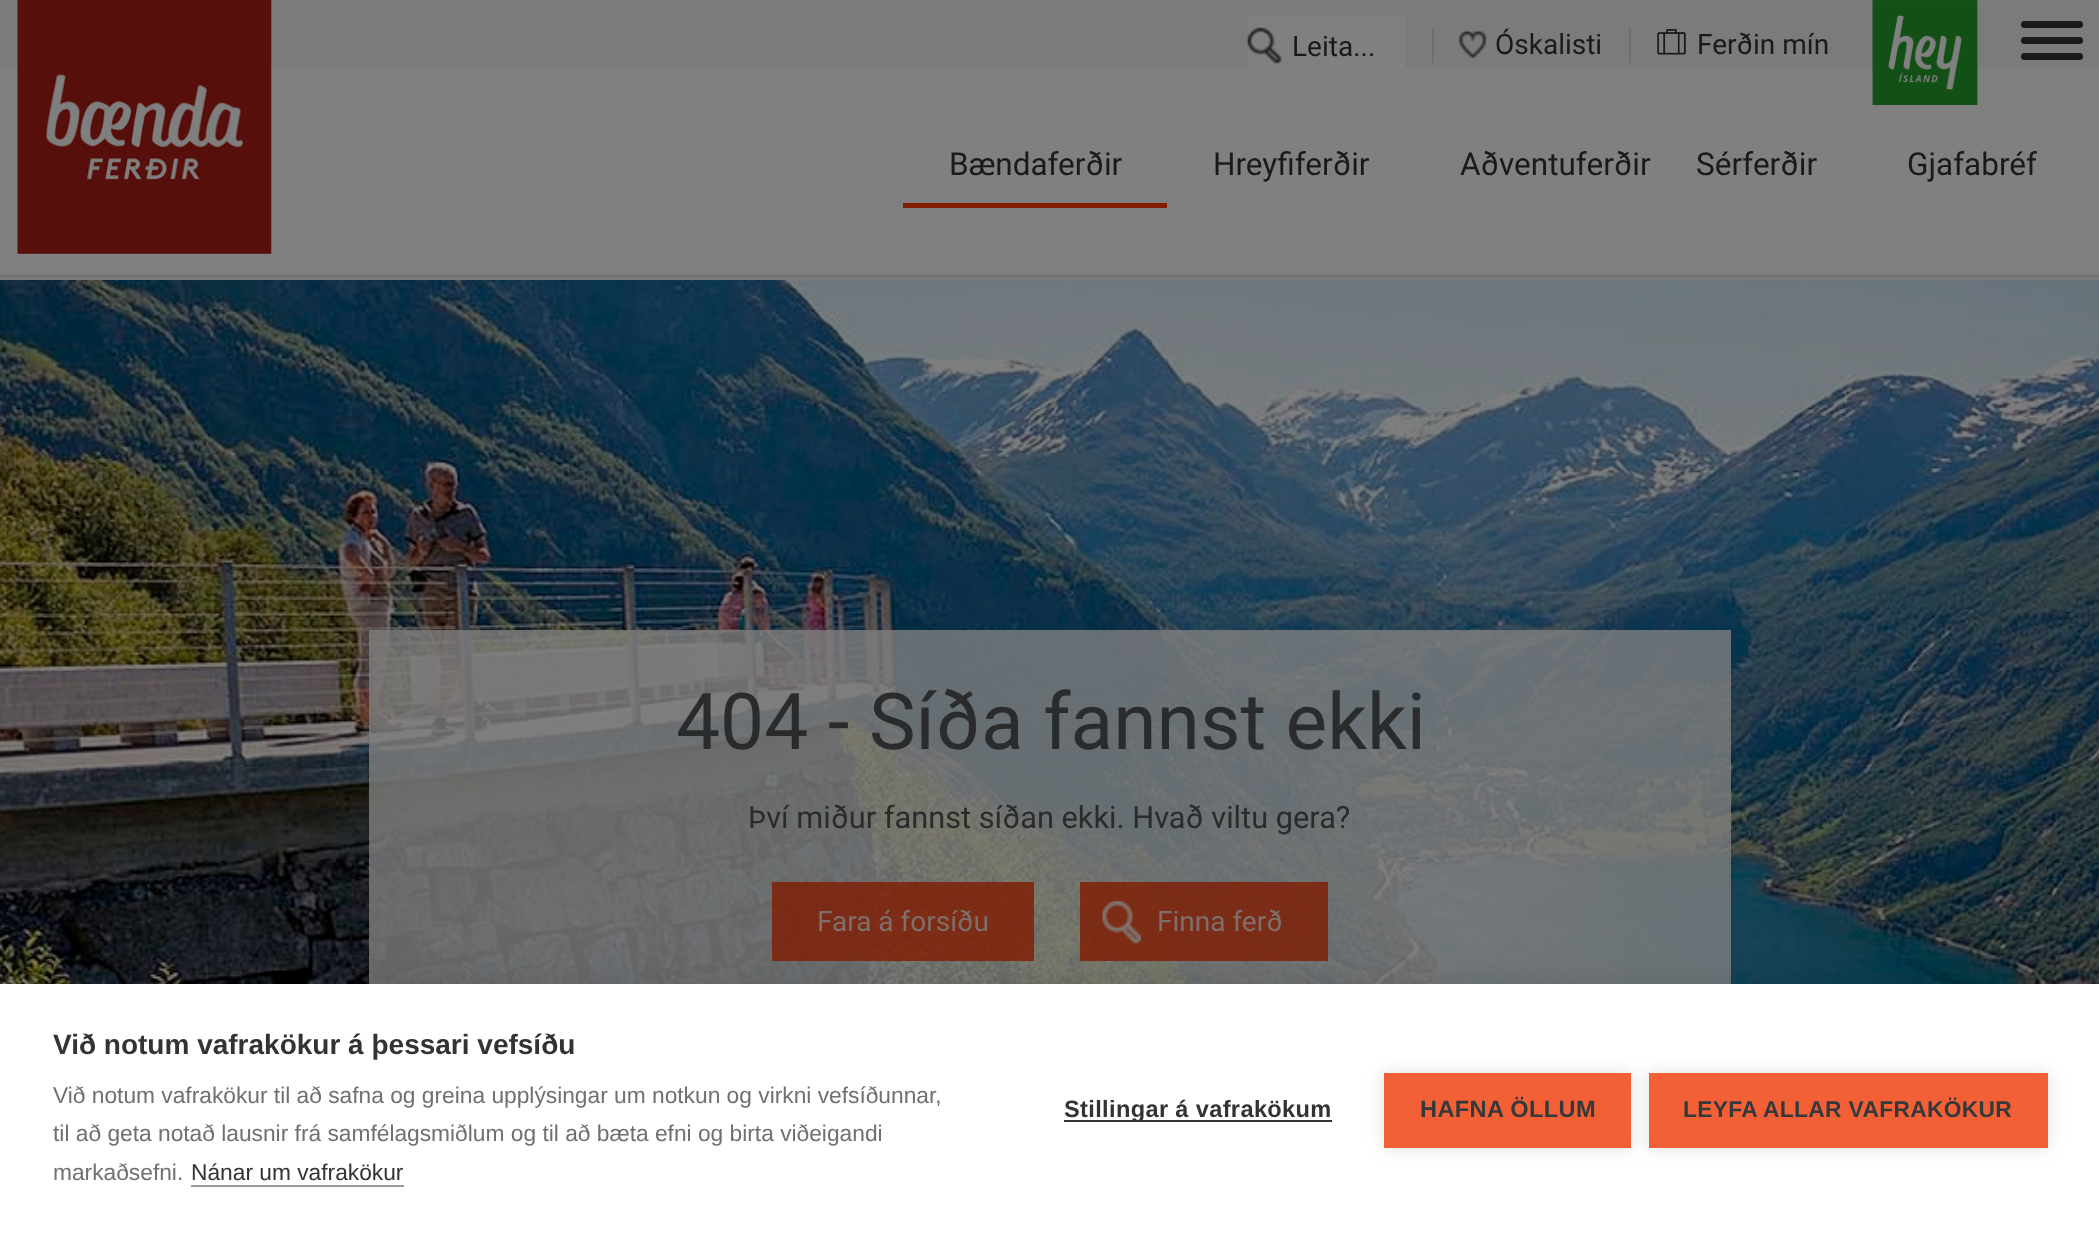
<?xml version="1.0" encoding="UTF-8"?>
<svg xmlns="http://www.w3.org/2000/svg" width="2099" height="1234">
    <defs>
        <filter id="blur1" x="-50%" y="-200%" width="200%" height="500%"><feGaussianBlur stdDeviation="17.5"/></filter>
        <filter id="blur2" x="-50%" y="-200%" width="200%" height="500%"><feGaussianBlur stdDeviation="9"/></filter>
    </defs>
    <rect width="100%" height="100%" fill="#7B7B7D"/>
    <rect x="0" y="68" width="2099" height="207" fill="#808080"/>
    <image x="17" y="0" width="255" height="254" href="img_01.png"/>
    <rect x="1248" y="16" width="157" height="52" fill="#808080"/>
    <image x="1247" y="27" width="35" height="37" href="img_02.png"/>
    <text x="1292" y="56" font-family="Roboto" font-size="28" fill="#1A1A1A">Leita...</text>
    <rect x="1432" y="28" width="2" height="35" fill="#6F6F6F"/>
    <image x="1458" y="30" width="28" height="28" href="img_03.png"/>
    <text x="1495" y="54" font-family="Roboto" font-size="28" fill="#1A1A1A">Óskalisti</text>
    <rect x="1629" y="28" width="2" height="35" fill="#6F6F6F"/>
    <image x="1657" y="29" width="29" height="26" href="img_04.png"/>
    <text x="1697" y="54" font-family="Roboto" font-size="28" fill="#1A1A1A">Ferðin mín</text>
    <image x="1872" y="0" width="106" height="105" href="img_05.png"/>
    <rect x="2021" y="37" width="62" height="7" rx="3.5" fill="#1A1A1A"/>
    <rect x="2021" y="21" width="62" height="7" rx="3.5" fill="#1A1A1A"/>
    <rect x="2021" y="53" width="62" height="7" rx="3.5" fill="#1A1A1A"/>
    <rect x="0" y="275" width="2099" height="2" fill="#717171"/>
    <rect x="903" y="203" width="264" height="5" fill="#801C00"/>
    <text x="949" y="175" font-family="Roboto" font-size="31.5" fill="#1A1A1A">Bændaferðir</text>
    <text x="1213" y="175" font-family="Roboto" font-size="31.5" fill="#1A1A1A">Hreyfiferðir</text>
    <text x="1460" y="175" font-family="Roboto" font-size="31.5" fill="#1A1A1A">Aðventuferðir</text>
    <text x="1696" y="175" font-family="Roboto" font-size="31.5" fill="#1A1A1A">Sérferðir</text>
    <text x="1907" y="175" font-family="Roboto" font-size="31.5" fill="#1A1A1A">Gjafabréf</text>
    <image x="0" y="280" width="2099" height="704" href="img_06.png"/>
    <rect x="369" y="630" width="1362" height="354" fill="#808080" fill-opacity="0.8"/>
    <text x="676" y="749" font-family="Roboto" font-size="78.5" fill="#2A2B2C">404 - Síða fannst ekki</text>
    <text x="748" y="828" font-family="Roboto" font-size="30.75" fill="#2A2B2C">Því miður fannst síðan ekki. Hvað viltu gera?</text>
    <rect x="772" y="882" width="262" height="79" fill="#801C00" fill-opacity="0.8"/>
    <text x="817" y="931" font-family="Roboto" font-size="28" fill="#7F6F6B">Fara á forsíðu</text>
    <rect x="1080" y="882" width="248" height="79" fill="#801C00" fill-opacity="0.8"/>
    <image x="1102" y="901" width="39" height="43" href="img_07.png"/>
    <text x="1157" y="931" font-family="Roboto" font-size="28" fill="#7F6F6B">Finna ferð</text>
    <rect x="0" y="984" width="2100" height="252" fill="#000000" fill-opacity="0.1" filter="url(#blur1)"/>
    <rect x="0" y="984" width="2099" height="250" fill="#FFFFFF"/>
    <text x="53" y="1054" font-family="Liberation Sans" font-size="28" font-weight="700" fill="#333333">Við notum vafrakökur á þessari vefsíðu</text>
    <text font-family="Liberation Sans" font-size="22.75" fill="#707070">
        <tspan x="53" y="1103">Við notum vafrakökur til að safna og greina upplýsingar um notkun og virkni vefsíðunnar,</tspan>
        <tspan x="53" y="1141">til að geta notað lausnir frá samfélagsmiðlum og til að bæta efni og birta viðeigandi</tspan>
        <tspan x="53" y="1180">markaðsefni.</tspan>
    </text>
    <text x="191" y="1180" font-family="Liberation Sans" font-size="22.75" fill="#333333">Nánar um vafrakökur</text>
    <rect x="191" y="1185" width="213" height="2" fill="#999999"/>
    <rect x="1064" y="1120" width="268" height="2" fill="#333333"/>
    <text x="1064" y="1117" font-family="Liberation Sans" font-size="23.6" font-weight="700" letter-spacing="0.35" fill="#333333">Stillingar á vafrakökum</text>
    <rect x="1384" y="1073" width="247" height="75" fill="#000000" fill-opacity="0.12" filter="url(#blur2)"/>
    <rect x="1384" y="1073" width="247" height="75" fill="#F46036"/>
    <text x="1420" y="1117" font-family="Liberation Sans" font-size="23.6" font-weight="700" letter-spacing="0.35" fill="#35393C">HAFNA ÖLLUM</text>
    <rect x="1649" y="1073" width="399" height="75" fill="#000000" fill-opacity="0.12" filter="url(#blur2)"/>
    <rect x="1649" y="1073" width="399" height="75" fill="#F46036"/>
    <text x="1683" y="1117" font-family="Liberation Sans" font-size="22.75" font-weight="700" letter-spacing="0.35" fill="#35393C">LEYFA ALLAR VAFRAKÖKUR</text>
</svg>
